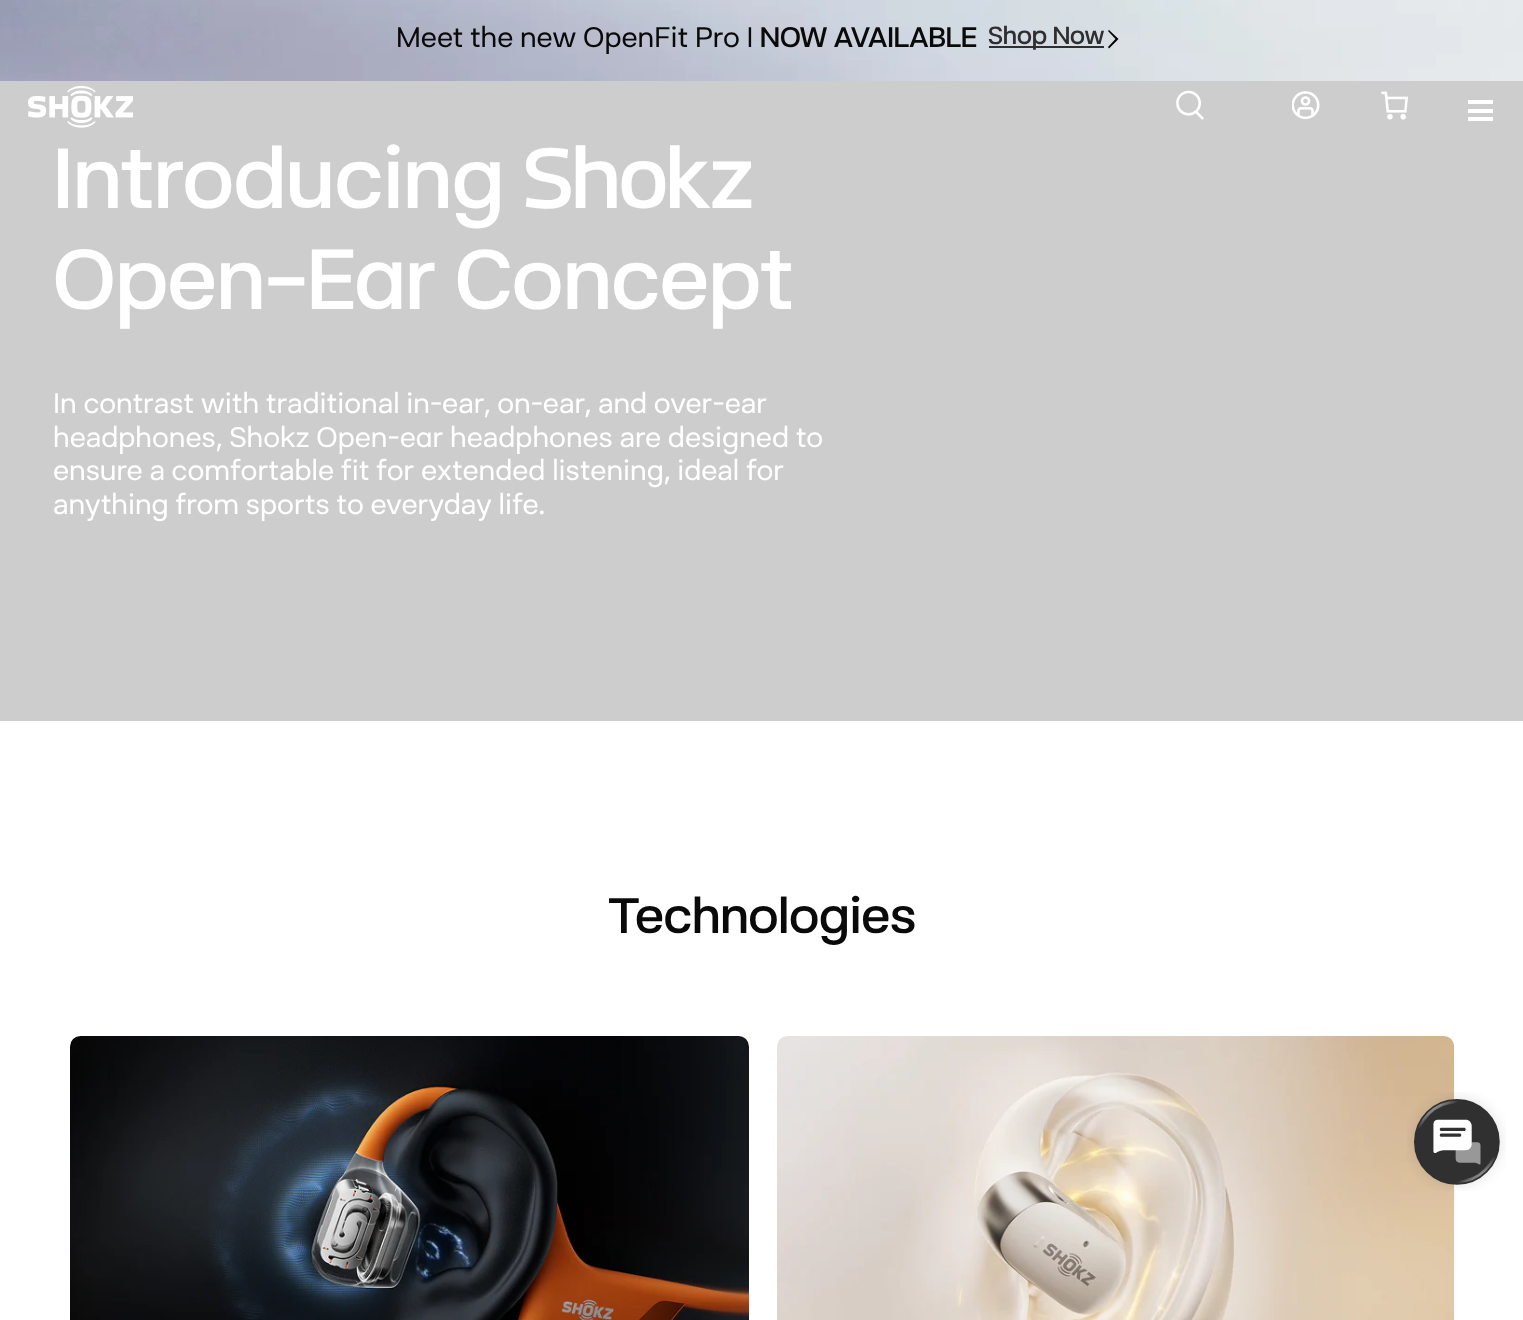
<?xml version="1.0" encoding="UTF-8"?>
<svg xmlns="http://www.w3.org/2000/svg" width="1523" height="1320">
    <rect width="100%" height="100%" fill="#FFFFFF"/>
    <image x="0" y="0" width="1523" height="81" href="img_01.png"/>
    <text x="396" y="47" font-family="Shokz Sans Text" font-size="28" fill="#0A0A0A">Meet the new OpenFit Pro |</text>
    <text x="760" y="47" font-family="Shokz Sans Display" font-size="28" font-weight="500" fill="#0A0A0A">NOW AVAILABLE</text>
    <rect x="989" y="46" width="115" height="2" fill="#2F2F2F"/>
    <text x="988" y="44" font-family="Shokz Sans Display" font-size="24.5" font-weight="500" fill="#2F2F2F">Shop Now</text>
    <path d="M 1109 48.5 L 1118.5 39 L 1109 30 L 1108 31 L 1115.5 39 L 1108 47 Z" fill="#000000"/>
    <rect x="0" y="81" width="1523" height="640" fill="#CDCDCD"/>
    <image x="28" y="85" width="105" height="43" href="img_02.png"/>
    <image x="1176" y="90" width="28" height="30" href="img_03.png"/>
    <image x="1292" y="91" width="28" height="29" href="img_04.png"/>
    <image x="1381" y="91" width="27" height="29" href="img_05.png"/>
    <rect x="1468" y="100" width="25" height="4" fill="#FFFFFF"/>
    <rect x="1468" y="109" width="25" height="4" fill="#FFFFFF"/>
    <rect x="1468" y="117" width="25" height="4" fill="#FFFFFF"/>
    <text font-family="Shokz Sans Display" font-size="84" font-weight="500" fill="#FFFFFF">
        <tspan x="53" y="208">Introducing Shokz</tspan>
        <tspan x="53" y="309">Open-Ear Concept</tspan>
    </text>
    <text font-family="Shokz Sans Text" font-size="28" fill="#FFFFFF">
        <tspan x="53" y="413">In contrast with traditional in-ear, on-ear, and over-ear</tspan>
        <tspan x="53" y="447">headphones, Shokz Open-ear headphones are designed to</tspan>
        <tspan x="53" y="480">ensure a comfortable fit for extended listening, ideal for</tspan>
        <tspan x="53" y="514">anything from sports to everyday life.</tspan>
    </text>
    <text x="608" y="933" font-family="Shokz Sans Display" font-size="49" font-weight="500" fill="#0A0A0A">Technologies</text>
    <image x="70" y="1036" width="679" height="284" href="img_06.png"/>
    <image x="777" y="1036" width="678" height="284" href="img_07.png"/>
    <image x="1407" y="1092" width="99" height="99" href="img_08.png"/>
</svg>
